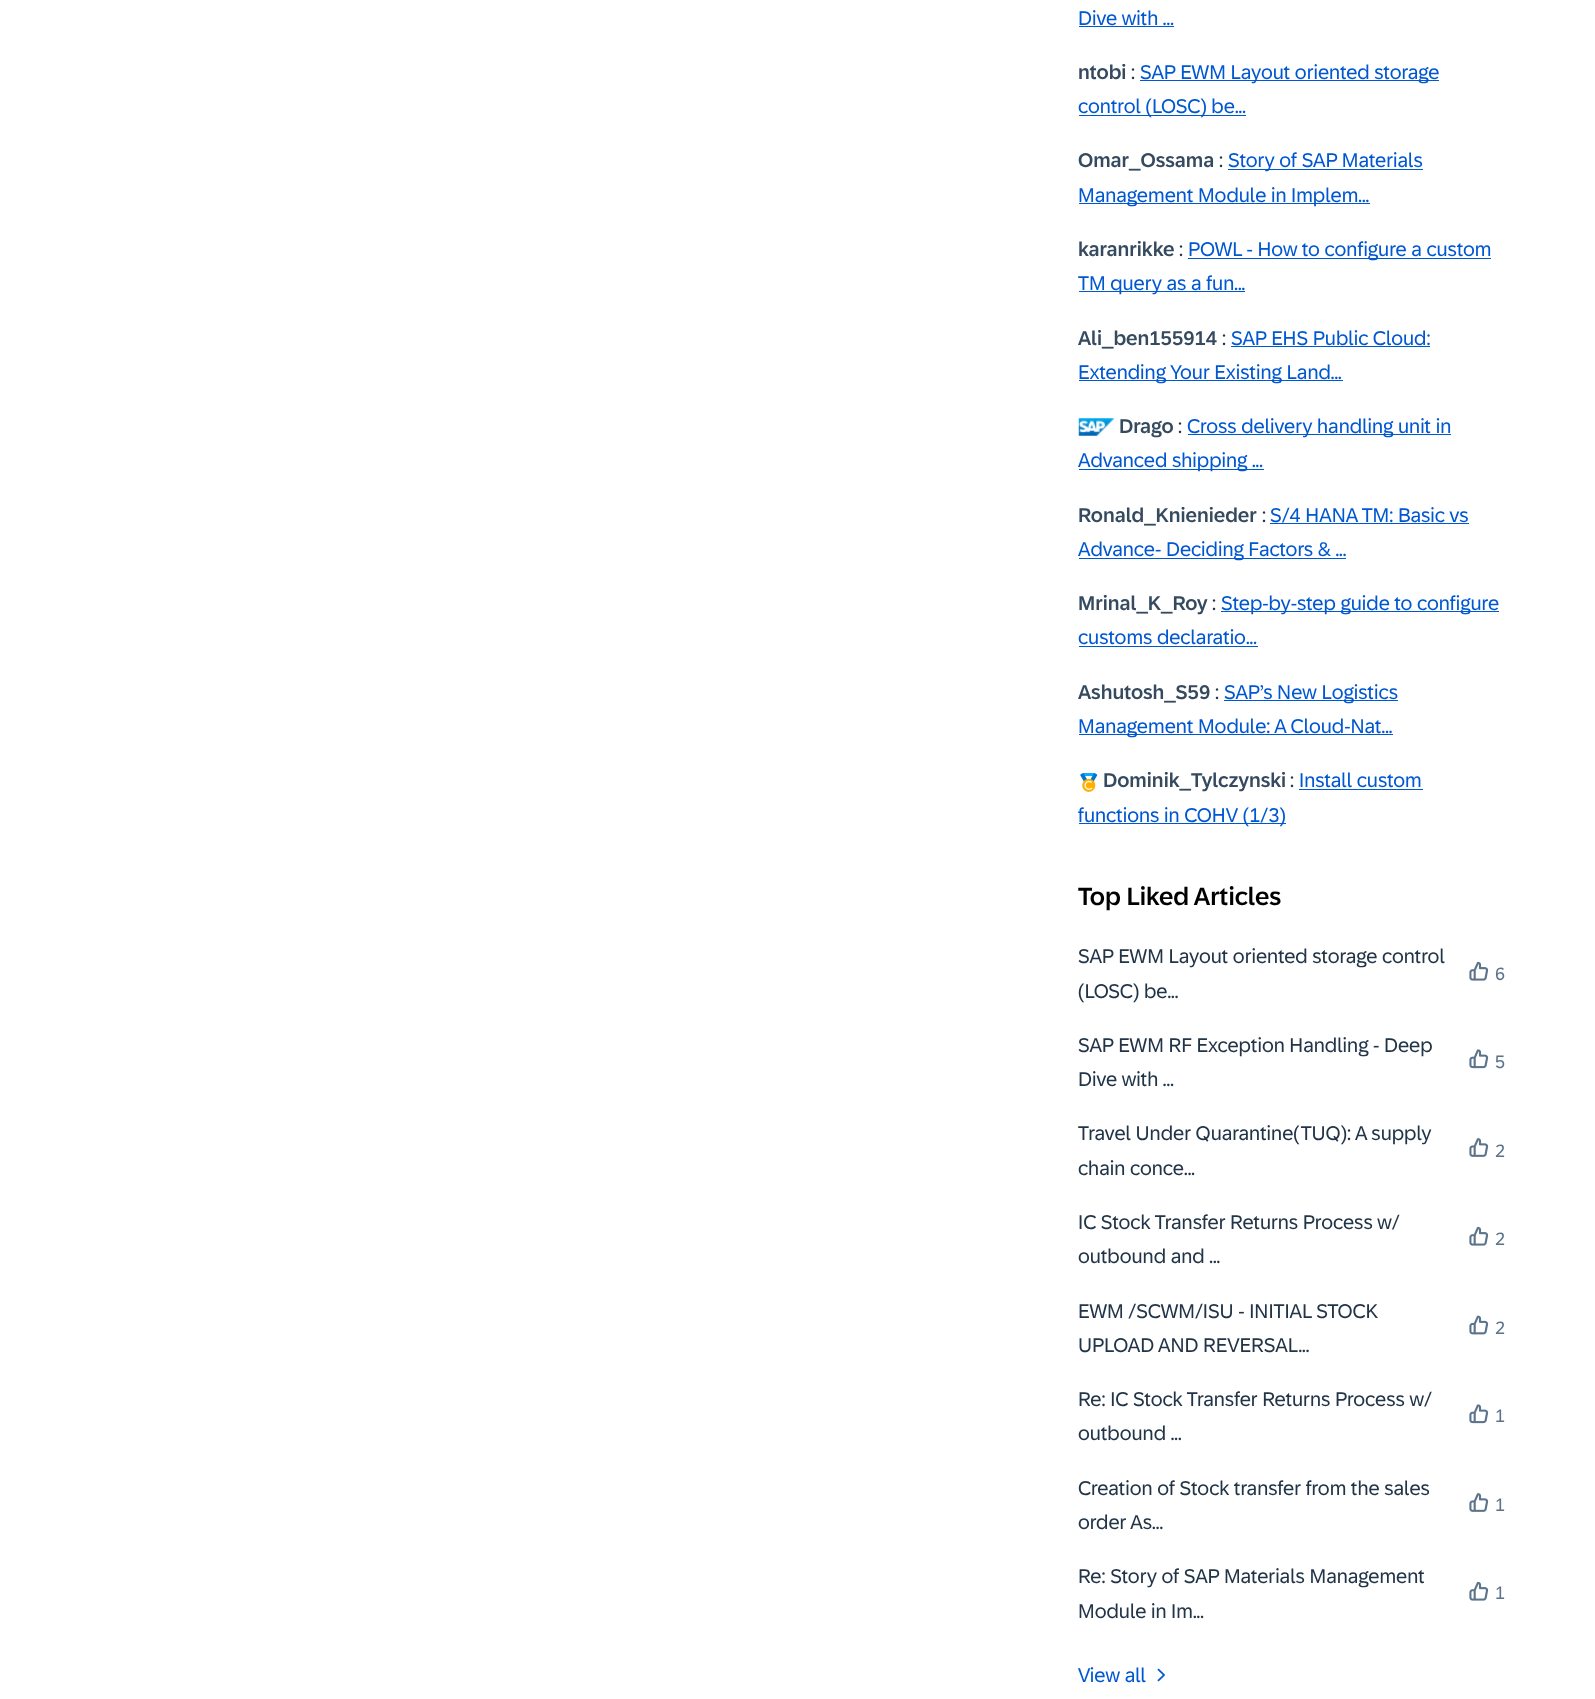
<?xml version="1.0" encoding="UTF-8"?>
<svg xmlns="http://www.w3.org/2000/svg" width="1595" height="1699">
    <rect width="100%" height="100%" fill="#FFFFFF"/>
    <text x="1078" y="25" font-family="'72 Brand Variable'" font-size="20" fill="#0057D2">Dive with ...</text>
    <rect x="1079" y="26" width="95" height="1" fill="#0057D2"/>
    <text x="1078" y="79" font-family="'72 Brand Variable'" font-size="20" font-weight="500" fill="#354A5F">ntobi</text>
    <text x="1131" y="79" font-family="'72 Brand Variable'" font-size="20" fill="#223548">:</text>
    <rect x="1140" y="80" width="299" height="1" fill="#0057D2"/>
    <text x="1140" y="79" font-family="'72 Brand Variable'" font-size="20" fill="#0057D2">SAP EWM Layout oriented storage</text>
    <rect x="1079" y="115" width="167" height="1" fill="#0057D2"/>
    <text x="1078" y="113" font-family="'72 Brand Variable'" font-size="20" fill="#0057D2">control (LOSC) be...</text>
    <text x="1078" y="167" font-family="'72 Brand Variable'" font-size="20" font-weight="500" fill="#354A5F">Omar_Ossama</text>
    <text x="1219" y="167" font-family="'72 Brand Variable'" font-size="20" fill="#223548">:</text>
    <rect x="1228" y="169" width="195" height="1" fill="#0057D2"/>
    <text x="1228" y="167" font-family="'72 Brand Variable'" font-size="20" fill="#0057D2">Story of SAP Materials</text>
    <rect x="1079" y="203" width="291" height="1" fill="#0057D2"/>
    <text x="1078" y="202" font-family="'72 Brand Variable'" font-size="20" fill="#0057D2">Management Module in Implem...</text>
    <text x="1078" y="256" font-family="'72 Brand Variable'" font-size="20" font-weight="500" fill="#354A5F">karanrikke</text>
    <text x="1179" y="256" font-family="'72 Brand Variable'" font-size="20" fill="#223548">:</text>
    <rect x="1188" y="258" width="303" height="1" fill="#0057D2"/>
    <text x="1188" y="256" font-family="'72 Brand Variable'" font-size="20" fill="#0057D2">POWL - How to configure a custom</text>
    <rect x="1079" y="291" width="166" height="1" fill="#0057D2"/>
    <text x="1078" y="290" font-family="'72 Brand Variable'" font-size="20" fill="#0057D2">TM query as a fun...</text>
    <text x="1078" y="345" font-family="'72 Brand Variable'" font-size="20" font-weight="500" fill="#354A5F">Ali_ben155914</text>
    <text x="1222" y="345" font-family="'72 Brand Variable'" font-size="20" fill="#223548">:</text>
    <text x="1231" y="345" font-family="'72 Brand Variable'" font-size="20" fill="#0057D2">SAP EHS Public Cloud:</text>
    <rect x="1231" y="346" width="199" height="1" fill="#0057D2"/>
    <rect x="1079" y="380" width="264" height="1" fill="#0057D2"/>
    <text x="1078" y="379" font-family="'72 Brand Variable'" font-size="20" fill="#0057D2">Extending Your Existing Land...</text>
    <image x="1078" y="418" width="37" height="18" href="img_01.png"/>
    <text x="1119" y="433" font-family="'72 Brand Variable'" font-size="20" font-weight="500" fill="#354A5F">Drago</text>
    <text x="1178" y="433" font-family="'72 Brand Variable'" font-size="20" fill="#223548">:</text>
    <rect x="1188" y="434" width="263" height="1" fill="#0057D2"/>
    <text x="1187" y="433" font-family="'72 Brand Variable'" font-size="20" fill="#0057D2">Cross delivery handling unit in</text>
    <rect x="1079" y="469" width="185" height="1" fill="#0057D2"/>
    <text x="1078" y="467" font-family="'72 Brand Variable'" font-size="20" fill="#0057D2">Advanced shipping ...</text>
    <text x="1078" y="522" font-family="'72 Brand Variable'" font-size="20" font-weight="500" fill="#354A5F">Ronald_Knienieder</text>
    <text x="1262" y="522" font-family="'72 Brand Variable'" font-size="20" fill="#223548">:</text>
    <text x="1270" y="522" font-family="'72 Brand Variable'" font-size="20" fill="#0057D2">S/4 HANA TM: Basic vs</text>
    <rect x="1270" y="523" width="199" height="1" fill="#0057D2"/>
    <rect x="1079" y="558" width="267" height="1" fill="#0057D2"/>
    <text x="1078" y="556" font-family="'72 Brand Variable'" font-size="20" fill="#0057D2">Advance- Deciding Factors &amp; ...</text>
    <text x="1078" y="610" font-family="'72 Brand Variable'" font-size="20" font-weight="500" fill="#354A5F">Mrinal_K_Roy</text>
    <text x="1212" y="610" font-family="'72 Brand Variable'" font-size="20" fill="#223548">:</text>
    <rect x="1221" y="611" width="278" height="1" fill="#0057D2"/>
    <text x="1221" y="610" font-family="'72 Brand Variable'" font-size="20" fill="#0057D2">Step-by-step guide to configure</text>
    <text x="1078" y="644" font-family="'72 Brand Variable'" font-size="20" fill="#0057D2">customs declaratio...</text>
    <rect x="1079" y="646" width="179" height="1" fill="#0057D2"/>
    <text x="1078" y="699" font-family="'72 Brand Variable'" font-size="20" font-weight="500" fill="#354A5F">Ashutosh_S59</text>
    <text x="1215" y="699" font-family="'72 Brand Variable'" font-size="20" fill="#223548">:</text>
    <rect x="1224" y="700" width="174" height="1" fill="#0057D2"/>
    <text x="1224" y="699" font-family="'72 Brand Variable'" font-size="20" fill="#0057D2">SAP’s New Logistics</text>
    <rect x="1079" y="734" width="314" height="1" fill="#0057D2"/>
    <text x="1078" y="733" font-family="'72 Brand Variable'" font-size="20" fill="#0057D2">Management Module: A Cloud-Nat...</text>
    <image x="1080" y="773" width="18" height="19" href="img_02.png"/>
    <text x="1103" y="787" font-family="'72 Brand Variable'" font-size="20" font-weight="500" fill="#354A5F">Dominik_Tylczynski</text>
    <text x="1290" y="787" font-family="'72 Brand Variable'" font-size="20" fill="#223548">:</text>
    <text x="1299" y="787" font-family="'72 Brand Variable'" font-size="20" fill="#0057D2">Install custom</text>
    <rect x="1299" y="789" width="124" height="1" fill="#0057D2"/>
    <rect x="1079" y="823" width="207" height="1" fill="#0057D2"/>
    <text x="1078" y="822" font-family="'72 Brand Variable'" font-size="20" fill="#0057D2">functions in COHV (1/3)</text>
    <text x="1078" y="905" font-family="'72 Brand Variable'" font-size="25" font-weight="500" fill="#000000">Top Liked Articles</text>
    <text font-family="'72 Brand Variable'" font-size="20" fill="#223548">
        <tspan x="1078" y="963">SAP EWM Layout oriented storage control</tspan>
        <tspan x="1078" y="998">(LOSC) be...</tspan>
    </text>
    <image x="1469" y="961" width="20" height="20" href="img_03.png"/>
    <text x="1495" y="980" font-family="'72 Brand Variable'" font-size="18" fill="#5B738B">6</text>
    <text font-family="'72 Brand Variable'" font-size="20" fill="#223548">
        <tspan x="1078" y="1052">SAP EWM RF Exception Handling - Deep</tspan>
        <tspan x="1078" y="1086">Dive with ...</tspan>
    </text>
    <image x="1469" y="1049" width="20" height="20" href="img_04.png"/>
    <text x="1495" y="1068" font-family="'72 Brand Variable'" font-size="18" fill="#5B738B">5</text>
    <text font-family="'72 Brand Variable'" font-size="20" fill="#223548">
        <tspan x="1078" y="1140">Travel Under Quarantine(TUQ): A supply</tspan>
        <tspan x="1078" y="1175">chain conce...</tspan>
    </text>
    <image x="1469" y="1138" width="20" height="19" href="img_05.png"/>
    <text x="1495" y="1157" font-family="'72 Brand Variable'" font-size="18" fill="#5B738B">2</text>
    <text font-family="'72 Brand Variable'" font-size="20" fill="#223548">
        <tspan x="1078" y="1229">IC Stock Transfer Returns Process w/</tspan>
        <tspan x="1078" y="1263">outbound and ...</tspan>
    </text>
    <image x="1469" y="1226" width="20" height="20" href="img_03.png"/>
    <text x="1495" y="1245" font-family="'72 Brand Variable'" font-size="18" fill="#5B738B">2</text>
    <text font-family="'72 Brand Variable'" font-size="20" fill="#223548">
        <tspan x="1078" y="1318">EWM /SCWM/ISU - INITIAL STOCK</tspan>
        <tspan x="1078" y="1352">UPLOAD</tspan>
    </text>
    <text x="1158" y="1352" font-family="'72 Brand Variable'" font-size="20" fill="#223548">AND REVERSAL...</text>
    <image x="1469" y="1315" width="20" height="20" href="img_06.png"/>
    <text x="1495" y="1334" font-family="'72 Brand Variable'" font-size="18" fill="#5B738B">2</text>
    <text font-family="'72 Brand Variable'" font-size="20" fill="#223548">
        <tspan x="1078" y="1406">Re: IC Stock Transfer Returns Process w/</tspan>
        <tspan x="1078" y="1440">outbound ...</tspan>
    </text>
    <image x="1469" y="1404" width="20" height="20" href="img_04.png"/>
    <text x="1495" y="1422" font-family="'72 Brand Variable'" font-size="18" fill="#5B738B">1</text>
    <text font-family="'72 Brand Variable'" font-size="20" fill="#223548">
        <tspan x="1078" y="1495">Creation of Stock transfer from the sales</tspan>
        <tspan x="1078" y="1529">order As...</tspan>
    </text>
    <image x="1469" y="1493" width="20" height="19" href="img_05.png"/>
    <text x="1495" y="1511" font-family="'72 Brand Variable'" font-size="18" fill="#5B738B">1</text>
    <text font-family="'72 Brand Variable'" font-size="20" fill="#223548">
        <tspan x="1078" y="1583">Re: Story of SAP Materials Management</tspan>
        <tspan x="1078" y="1618">Module in Im...</tspan>
    </text>
    <image x="1469" y="1581" width="20" height="20" href="img_03.png"/>
    <text x="1495" y="1599" font-family="'72 Brand Variable'" font-size="18" fill="#5B738B">1</text>
    <text x="1078" y="1682" font-family="'72 Brand Variable'" font-size="20" fill="#0057D2">View all</text>
    <image x="1157" y="1668" width="8" height="14" href="img_07.png"/>
</svg>
